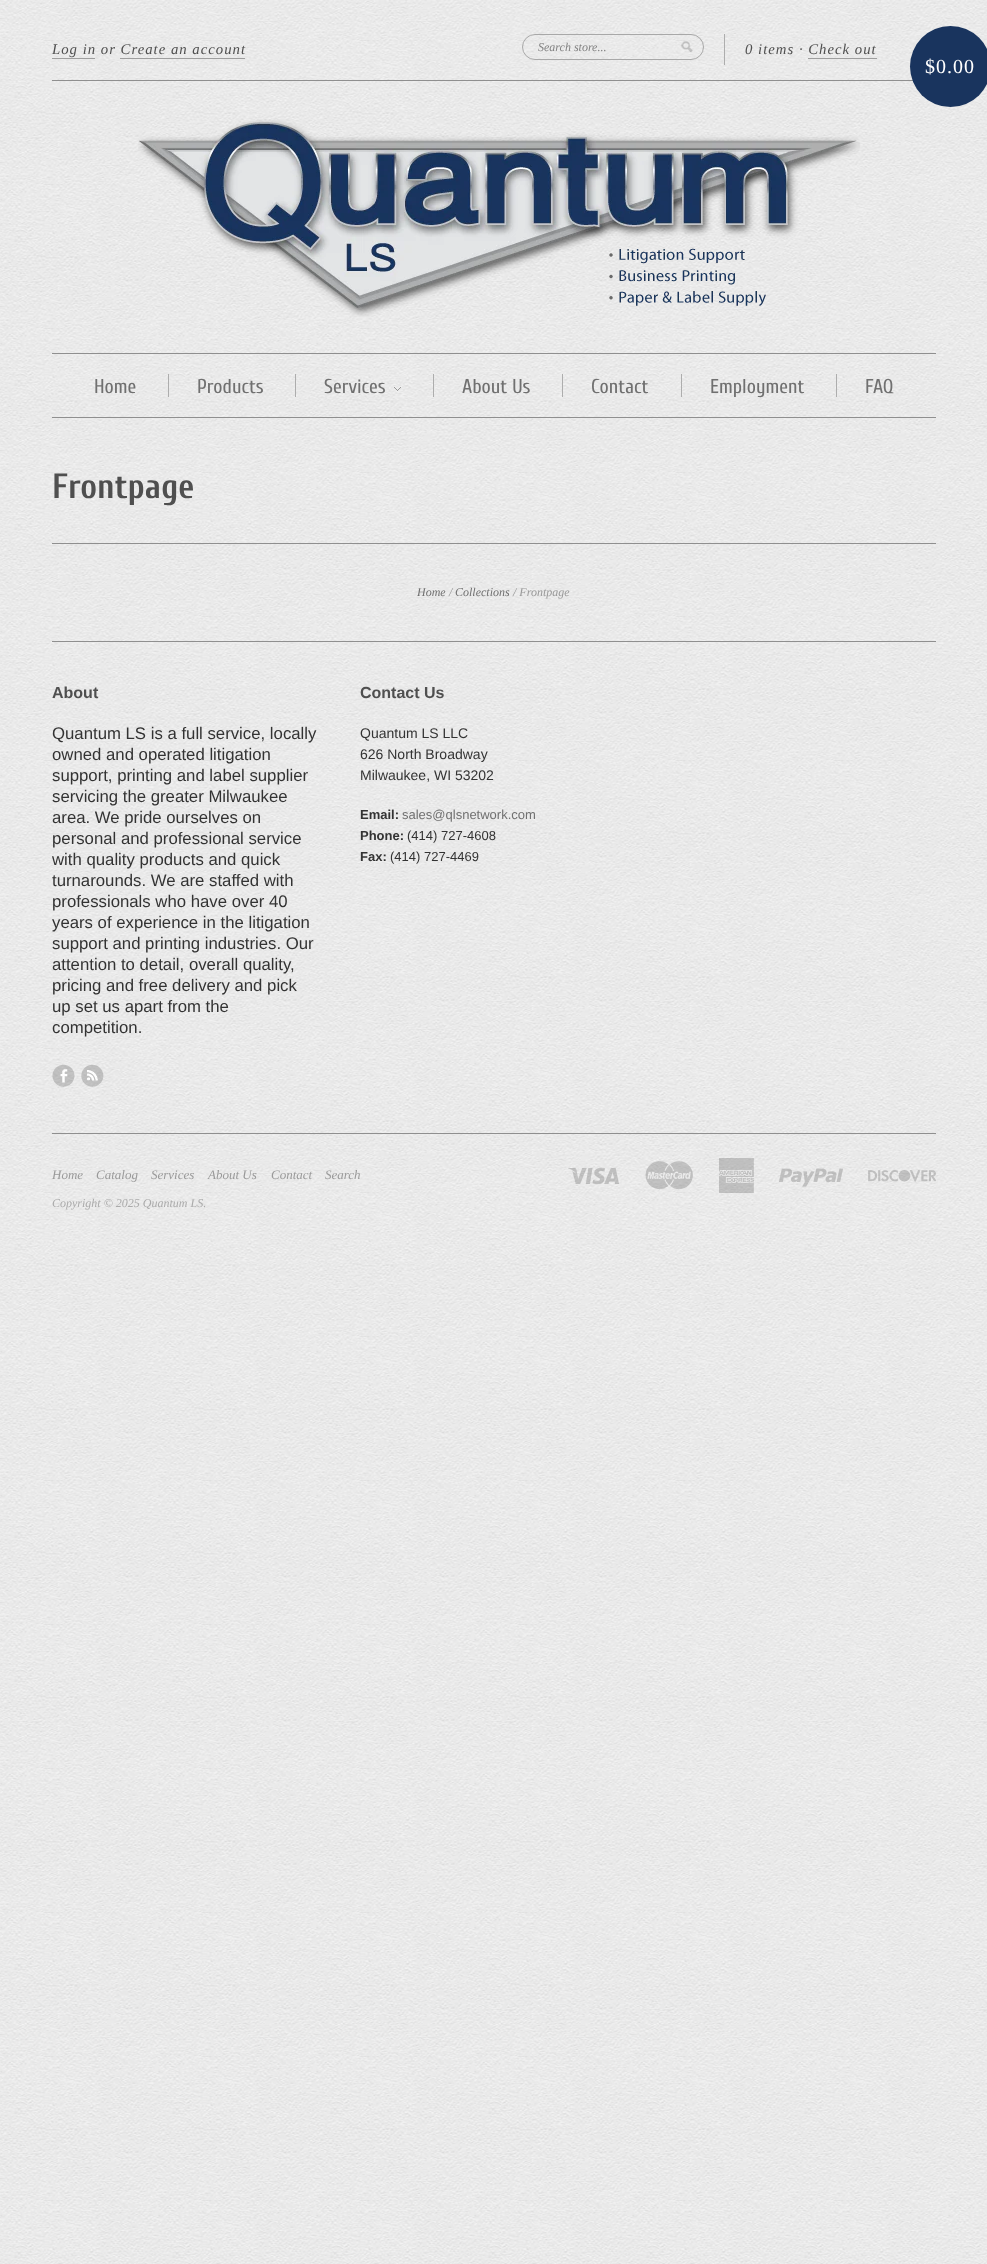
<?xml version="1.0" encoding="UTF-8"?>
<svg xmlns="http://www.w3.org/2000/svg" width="987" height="2264">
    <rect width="100%" height="100%" fill="#FFFFFF"/>
    <image x="0" y="0" width="987" height="2264" href="img_01.png"/>
    <rect x="52" y="417" width="884" height="1" fill="#8F8F8F"/>
    <rect x="52" y="80" width="861" height="1" fill="#8F8F8F"/>
    <text x="52" y="54" font-family="Liberation Serif" font-size="14.75" font-style="italic" letter-spacing="1" fill="#4F4F4F">Log in or Create an account</text>
    <rect x="52" y="58" width="43" height="1" fill="#9E9E9E"/>
    <rect x="120" y="58" width="125" height="1" fill="#9E9E9E"/>
    <rect x="522.5" y="34.5" width="181" height="25" rx="12.5" fill="none" stroke="#A8A8A8"/>
    <text x="538" y="51" font-family="Liberation Serif" font-size="12" font-style="italic" fill="#828282">Search store...</text>
    <image x="681" y="41" width="12" height="11" href="img_02.png"/>
    <rect x="724" y="34" width="1" height="31" fill="#ADADAD"/>
    <text x="745" y="54" font-family="Liberation Serif" font-size="14.75" font-style="italic" letter-spacing="1" fill="#4F4F4F">0 items · Check out</text>
    <rect x="808" y="58" width="69" height="1" fill="#9E9E9E"/>
    <circle cx="950.5" cy="66.5" r="40.5" fill="#19345E"/>
    <text x="925" y="73" font-family="Liberation Serif" font-size="20" letter-spacing="1" fill="#FFFFFF">$0.00</text>
    <image x="138" y="119" width="722" height="198" href="img_03.png"/>
    <rect x="52" y="353" width="884" height="1" fill="#8F8F8F"/>
    <text x="94" y="393" font-family="Cuprum" font-size="20" fill="#707070">Home</text>
    <rect x="168" y="374" width="1" height="23" fill="#ADADAD"/>
    <text x="197" y="393" font-family="Cuprum" font-size="20" fill="#707070">Products</text>
    <rect x="295" y="374" width="1" height="23" fill="#ADADAD"/>
    <text x="324" y="393" font-family="Cuprum" font-size="20" fill="#707070">Services</text>
    <image x="394" y="387" width="7" height="4" href="img_04.png"/>
    <rect x="433" y="374" width="1" height="23" fill="#ADADAD"/>
    <text x="462" y="393" font-family="Cuprum" font-size="20" fill="#707070">About Us</text>
    <rect x="562" y="374" width="1" height="23" fill="#ADADAD"/>
    <text x="591" y="393" font-family="Cuprum" font-size="20" fill="#707070">Contact</text>
    <rect x="681" y="374" width="1" height="23" fill="#ADADAD"/>
    <text x="710" y="393" font-family="Cuprum" font-size="20" fill="#707070">Employment</text>
    <rect x="836" y="374" width="1" height="23" fill="#ADADAD"/>
    <text x="865" y="393" font-family="Cuprum" font-size="20" fill="#707070">FAQ</text>
    <text x="52" y="498" font-family="Cuprum" font-size="35" font-weight="700" fill="#4F4F4F">Frontpage</text>
    <rect x="52" y="543" width="884" height="1" fill="#8F8F8F"/>
    <text x="417" y="596" font-family="Liberation Serif" font-size="12" font-style="italic" fill="#707070">Home</text>
    <text x="449" y="596" font-family="Liberation Serif" font-size="12" font-style="italic" fill="#999999">/</text>
    <text x="455" y="596" font-family="Liberation Serif" font-size="12" font-style="italic" fill="#707070">Collections</text>
    <text x="513" y="596" font-family="Liberation Serif" font-size="12" font-style="italic" fill="#999999">/ Frontpage</text>
    <rect x="52" y="641" width="884" height="1" fill="#8F8F8F"/>
    <text x="52" y="698" font-family="Liberation Sans" font-size="16" font-weight="700" fill="#4F4F4F">About</text>
    <text font-family="Liberation Sans" font-size="16.75" fill="#333333">
        <tspan x="52" y="739">Quantum LS is a full service, locally</tspan>
        <tspan x="52" y="760">owned and operated litigation</tspan>
        <tspan x="52" y="781">support, printing and label supplier</tspan>
        <tspan x="52" y="802">servicing the greater Milwaukee</tspan>
        <tspan x="52" y="823">area. We pride ourselves on</tspan>
        <tspan x="52" y="844">personal and professional service</tspan>
        <tspan x="52" y="865">with quality products and quick</tspan>
        <tspan x="52" y="886">turnarounds. We are staffed with</tspan>
        <tspan x="52" y="907">professionals who have over 40</tspan>
        <tspan x="52" y="928">years of experience in the litigation</tspan>
        <tspan x="52" y="949">support and printing industries. Our</tspan>
        <tspan x="52" y="970">attention to detail, overall quality,</tspan>
        <tspan x="52" y="991">pricing and free delivery and pick</tspan>
        <tspan x="52" y="1012">up set us apart from the</tspan>
        <tspan x="52" y="1033">competition.</tspan>
    </text>
    <image x="52" y="1064" width="23" height="23" href="img_05.png"/>
    <image x="81" y="1064" width="23" height="23" href="img_06.png"/>
    <text x="360" y="698" font-family="Liberation Sans" font-size="16" font-weight="700" fill="#4F4F4F">Contact Us</text>
    <text font-family="Liberation Sans" font-size="14" fill="#333333">
        <tspan x="360" y="738">Quantum LS LLC</tspan>
        <tspan x="360" y="759">626 North Broadway</tspan>
        <tspan x="360" y="780">Milwaukee, WI 53202</tspan>
    </text>
    <text x="360" y="819" font-family="Liberation Sans" font-size="13" font-weight="700" fill="#333333">Email:</text>
    <text x="402" y="819" font-family="Liberation Sans" font-size="13" fill="#707070">sales@qlsnetwork.com</text>
    <text x="360" y="840" font-family="Liberation Sans" font-size="13" font-weight="700" fill="#333333">Phone:</text>
    <text x="407" y="840" font-family="Liberation Sans" font-size="13" fill="#333333">(414) 727-4608</text>
    <text x="360" y="861" font-family="Liberation Sans" font-size="13" font-weight="700" fill="#333333">Fax:</text>
    <text x="390" y="861" font-family="Liberation Sans" font-size="13" fill="#333333">(414) 727-4469</text>
    <rect x="52" y="1133" width="884" height="1" fill="#8F8F8F"/>
    <text x="52" y="1179" font-family="Liberation Serif" font-size="13" font-style="italic" fill="#999999">Home</text>
    <text x="96" y="1179" font-family="Liberation Serif" font-size="13" font-style="italic" fill="#999999">Catalog</text>
    <text x="151" y="1179" font-family="Liberation Serif" font-size="13" font-style="italic" fill="#999999">Services</text>
    <text x="208" y="1179" font-family="Liberation Serif" font-size="13" font-style="italic" fill="#999999">About Us</text>
    <text x="271" y="1179" font-family="Liberation Serif" font-size="13" font-style="italic" fill="#999999">Contact</text>
    <text x="325" y="1179" font-family="Liberation Serif" font-size="13" font-style="italic" fill="#999999">Search</text>
    <text x="52" y="1207" font-family="Liberation Serif" font-size="12" font-style="italic" fill="#AAAAAA">Copyright © 2025 Quantum LS.</text>
    <image x="568" y="1167" width="51" height="18" href="img_07.png"/>
    <image x="645" y="1161" width="48" height="29" href="img_08.png"/>
    <image x="719" y="1158" width="35" height="35" href="img_09.png"/>
    <image x="779" y="1168" width="64" height="19" href="img_10.png"/>
    <image x="868" y="1170" width="68" height="12" href="img_11.png"/>
</svg>
